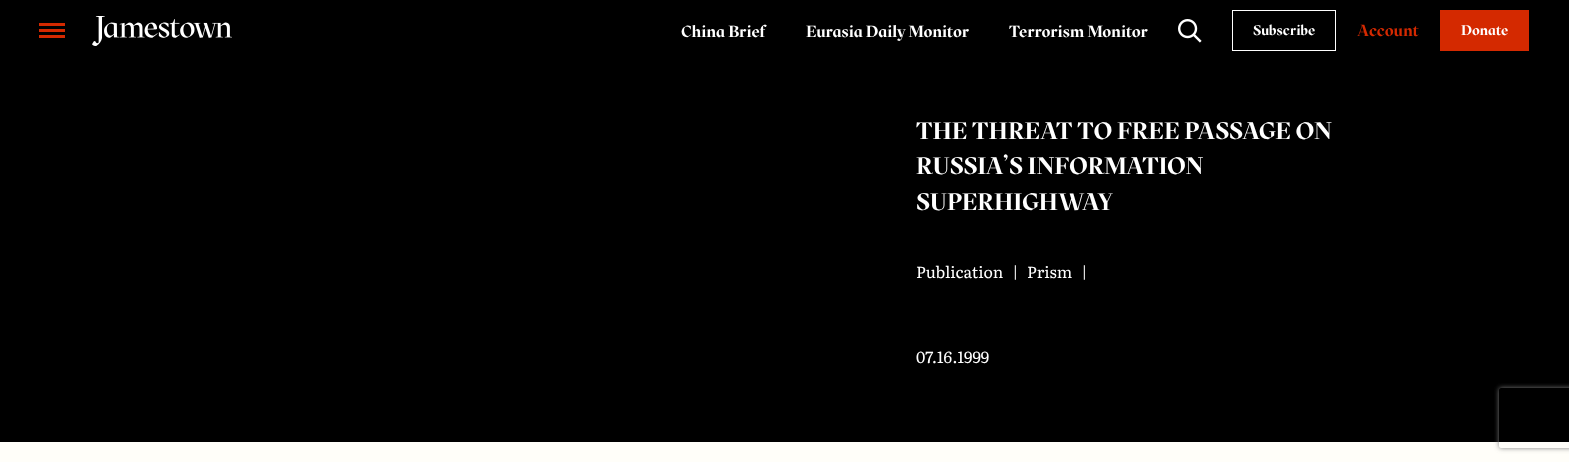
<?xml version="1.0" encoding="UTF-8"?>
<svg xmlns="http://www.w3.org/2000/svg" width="1569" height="462">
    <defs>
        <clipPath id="clip1"><path d="M 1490 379 H 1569 V 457 H 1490 Z M 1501 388 H 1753 C 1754 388 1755 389 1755 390 V 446 C 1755 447 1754 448 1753 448 H 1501 C 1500 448 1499 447 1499 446 V 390 C 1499 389 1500 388 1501 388 Z" clip-rule="evenodd"/></clipPath>
        <filter id="blur1" x="-50%" y="-200%" width="200%" height="500%"><feGaussianBlur stdDeviation="2.5"/></filter>
    </defs>
    <rect width="100%" height="100%" fill="#FFFEF9"/>
    <rect x="0" y="0" width="1569" height="442" fill="#000000"/>
    <rect x="39" y="23" width="26" height="3" fill="#D42900"/>
    <rect x="39" y="29" width="26" height="3" fill="#D42900"/>
    <rect x="39" y="35" width="26" height="3" fill="#D42900"/>
    <image x="92" y="16" width="140" height="30" href="img_01.png"/>
    <text x="681" y="37" font-family="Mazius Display" font-size="16" font-weight="700" fill="#FFFFFF">China Brief</text>
    <text x="806" y="37" font-family="Mazius Display" font-size="16" font-weight="700" fill="#FFFFFF">Eurasia Daily Monitor</text>
    <text x="1009" y="37" font-family="Mazius Display" font-size="16" font-weight="700" fill="#FFFFFF">Terrorism Monitor</text>
    <image x="1178" y="19" width="24" height="24" href="img_02.png"/>
    <rect x="1232.5" y="10.5" width="103" height="40" fill="none" stroke="#FFFFFF"/>
    <text x="1253" y="35" font-family="Mazius Display" font-size="14" font-weight="700" fill="#FFFFFF">Subscribe</text>
    <text x="1357" y="36" font-family="Mazius Display" font-size="16" font-weight="700" fill="#D42900">Account</text>
    <rect x="1440" y="10" width="89" height="41" fill="#D42900"/>
    <text x="1461" y="35" font-family="Mazius Display" font-size="14" font-weight="700" fill="#FFFFFF">Donate</text>
    <text font-family="Mazius Display" font-size="23.75" font-weight="700" fill="#FFFFFF">
        <tspan x="916" y="139">THE THREAT TO FREE PASSAGE ON</tspan>
        <tspan x="916" y="174">RUSSIA’S INFORMATION</tspan>
        <tspan x="916" y="210">SUPERHIGHWAY</tspan>
    </text>
    <text x="916" y="278" font-family="Literata" font-size="16" fill="#FFFFFF">Publication</text>
    <text x="1012" y="278" font-family="Literata" font-size="16" fill="#FFFFFF">|</text>
    <text x="1027" y="278" font-family="Literata" font-size="16" fill="#FFFFFF">Prism</text>
    <text x="1081" y="278" font-family="Literata" font-size="16" fill="#FFFFFF">|</text>
    <text x="916" y="363" font-family="Literata" font-size="16" fill="#FFFFFF">07.16.1999</text>
    <g clip-path="url(#clip1)">
        <rect x="1499" y="388" width="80" height="60" rx="2" fill="#808080" filter="url(#blur1)"/>
    </g>
</svg>
